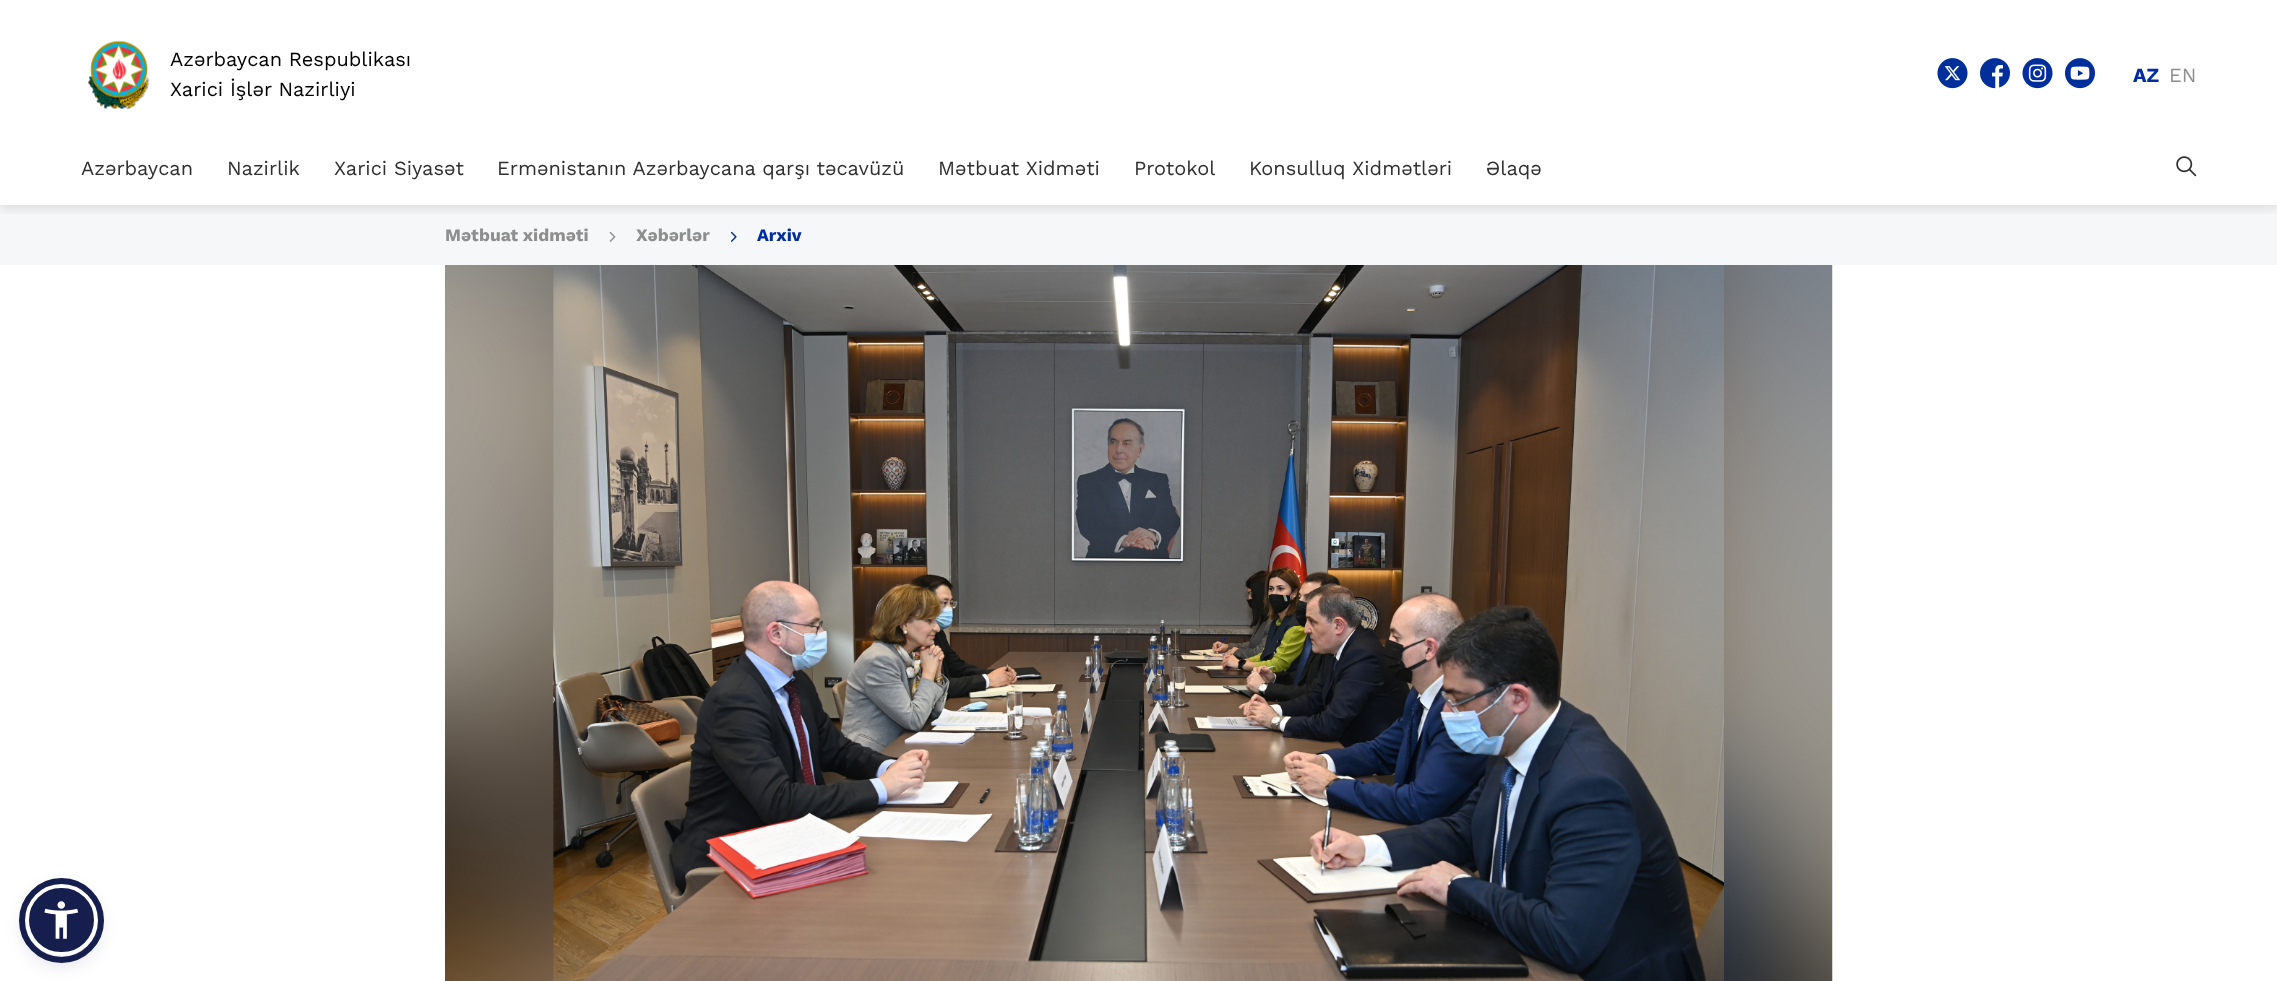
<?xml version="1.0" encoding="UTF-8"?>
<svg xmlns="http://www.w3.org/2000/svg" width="2277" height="981">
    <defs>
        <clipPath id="clip1"><rect x="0" y="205" width="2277" height="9"/></clipPath>
        <filter id="blur1" x="-50%" y="-200%" width="200%" height="500%"><feGaussianBlur stdDeviation="6"/></filter>
        <filter id="blur2" x="-50%" y="-200%" width="200%" height="500%"><feGaussianBlur stdDeviation="2.5"/></filter>
        <filter id="blur3" x="-50%" y="-200%" width="200%" height="500%"><feGaussianBlur stdDeviation="9.5"/></filter>
    </defs>
    <rect width="100%" height="100%" fill="#FFFFFF"/>
    <rect x="0" y="205" width="2277" height="60" fill="#F6F7F8"/>
    <g clip-path="url(#clip1)">
        <rect x="0" y="4" width="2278" height="205" fill="#000000" fill-opacity="0.1" filter="url(#blur1)"/>
    </g>
    <image x="88" y="40" width="62" height="69" href="img_01.png"/>
    <text font-family="Work Sans" font-size="20" fill="#000000">
        <tspan x="170" y="66">Azərbaycan Respublikası</tspan>
        <tspan x="170" y="96">Xarici İşlər Nazirliyi</tspan>
    </text>
    <image x="1937" y="58" width="31" height="31" href="img_02.png"/>
    <image x="1980" y="58" width="30" height="31" href="img_03.png"/>
    <image x="2022" y="58" width="31" height="31" href="img_04.png"/>
    <image x="2065" y="58" width="30" height="31" href="img_05.png"/>
    <text x="2133" y="82" font-family="Work Sans" font-size="20" font-weight="700" fill="#002E9A">AZ</text>
    <text x="2169" y="82" font-family="Work Sans" font-size="20" fill="#8E8E8E">EN</text>
    <text x="81" y="175" font-family="Work Sans" font-size="20" fill="#303030">Azərbaycan</text>
    <text x="227" y="175" font-family="Work Sans" font-size="20" fill="#303030">Nazirlik</text>
    <text x="334" y="175" font-family="Work Sans" font-size="20" fill="#303030">Xarici Siyasət</text>
    <text x="497" y="175" font-family="Work Sans" font-size="20" fill="#303030">Ermənistanın Azərbaycana qarşı təcavüzü</text>
    <text x="938" y="175" font-family="Work Sans" font-size="20" fill="#303030">Mətbuat Xidməti</text>
    <text x="1134" y="175" font-family="Work Sans" font-size="20" fill="#303030">Protokol</text>
    <text x="1249" y="175" font-family="Work Sans" font-size="20" fill="#303030">Konsulluq Xidmətləri</text>
    <text x="1486" y="175" font-family="Work Sans" font-size="20" fill="#303030">Əlaqə</text>
    <image x="2176" y="156" width="21" height="21" href="img_06.png"/>
    <text x="445" y="241" font-family="Work Sans" font-size="17.5" font-weight="700" fill="#8E8E8E">Mətbuat xidməti</text>
    <image x="609" y="231" width="7" height="11" href="img_07.png"/>
    <text x="636" y="241" font-family="Work Sans" font-size="17.5" font-weight="700" fill="#8E8E8E">Xəbərlər</text>
    <image x="730" y="231" width="7" height="11" href="img_08.png"/>
    <text x="757" y="241" font-family="Work Sans" font-size="17.5" font-weight="700" fill="#002E9A">Arxiv</text>
    <rect x="25" y="886" width="73" height="73" rx="36.5" fill="#5D6494" fill-opacity="0.2" filter="url(#blur2)"/>
    <rect x="25" y="890" width="73" height="73" rx="36.5" fill="#252C61" fill-opacity="0.15" filter="url(#blur3)"/>
    <rect x="27" y="886" width="69" height="68" rx="34" fill="#161E4D" stroke="#FFFFFF" stroke-width="4"/>
    <circle cx="61.5" cy="920.5" r="39.5" fill="none" stroke="#161E4D" stroke-width="6"/>
    <image x="44" y="901" width="35" height="38" href="img_09.png"/>
    <image x="445" y="265" width="1388" height="716" href="img_10.png"/>
</svg>
